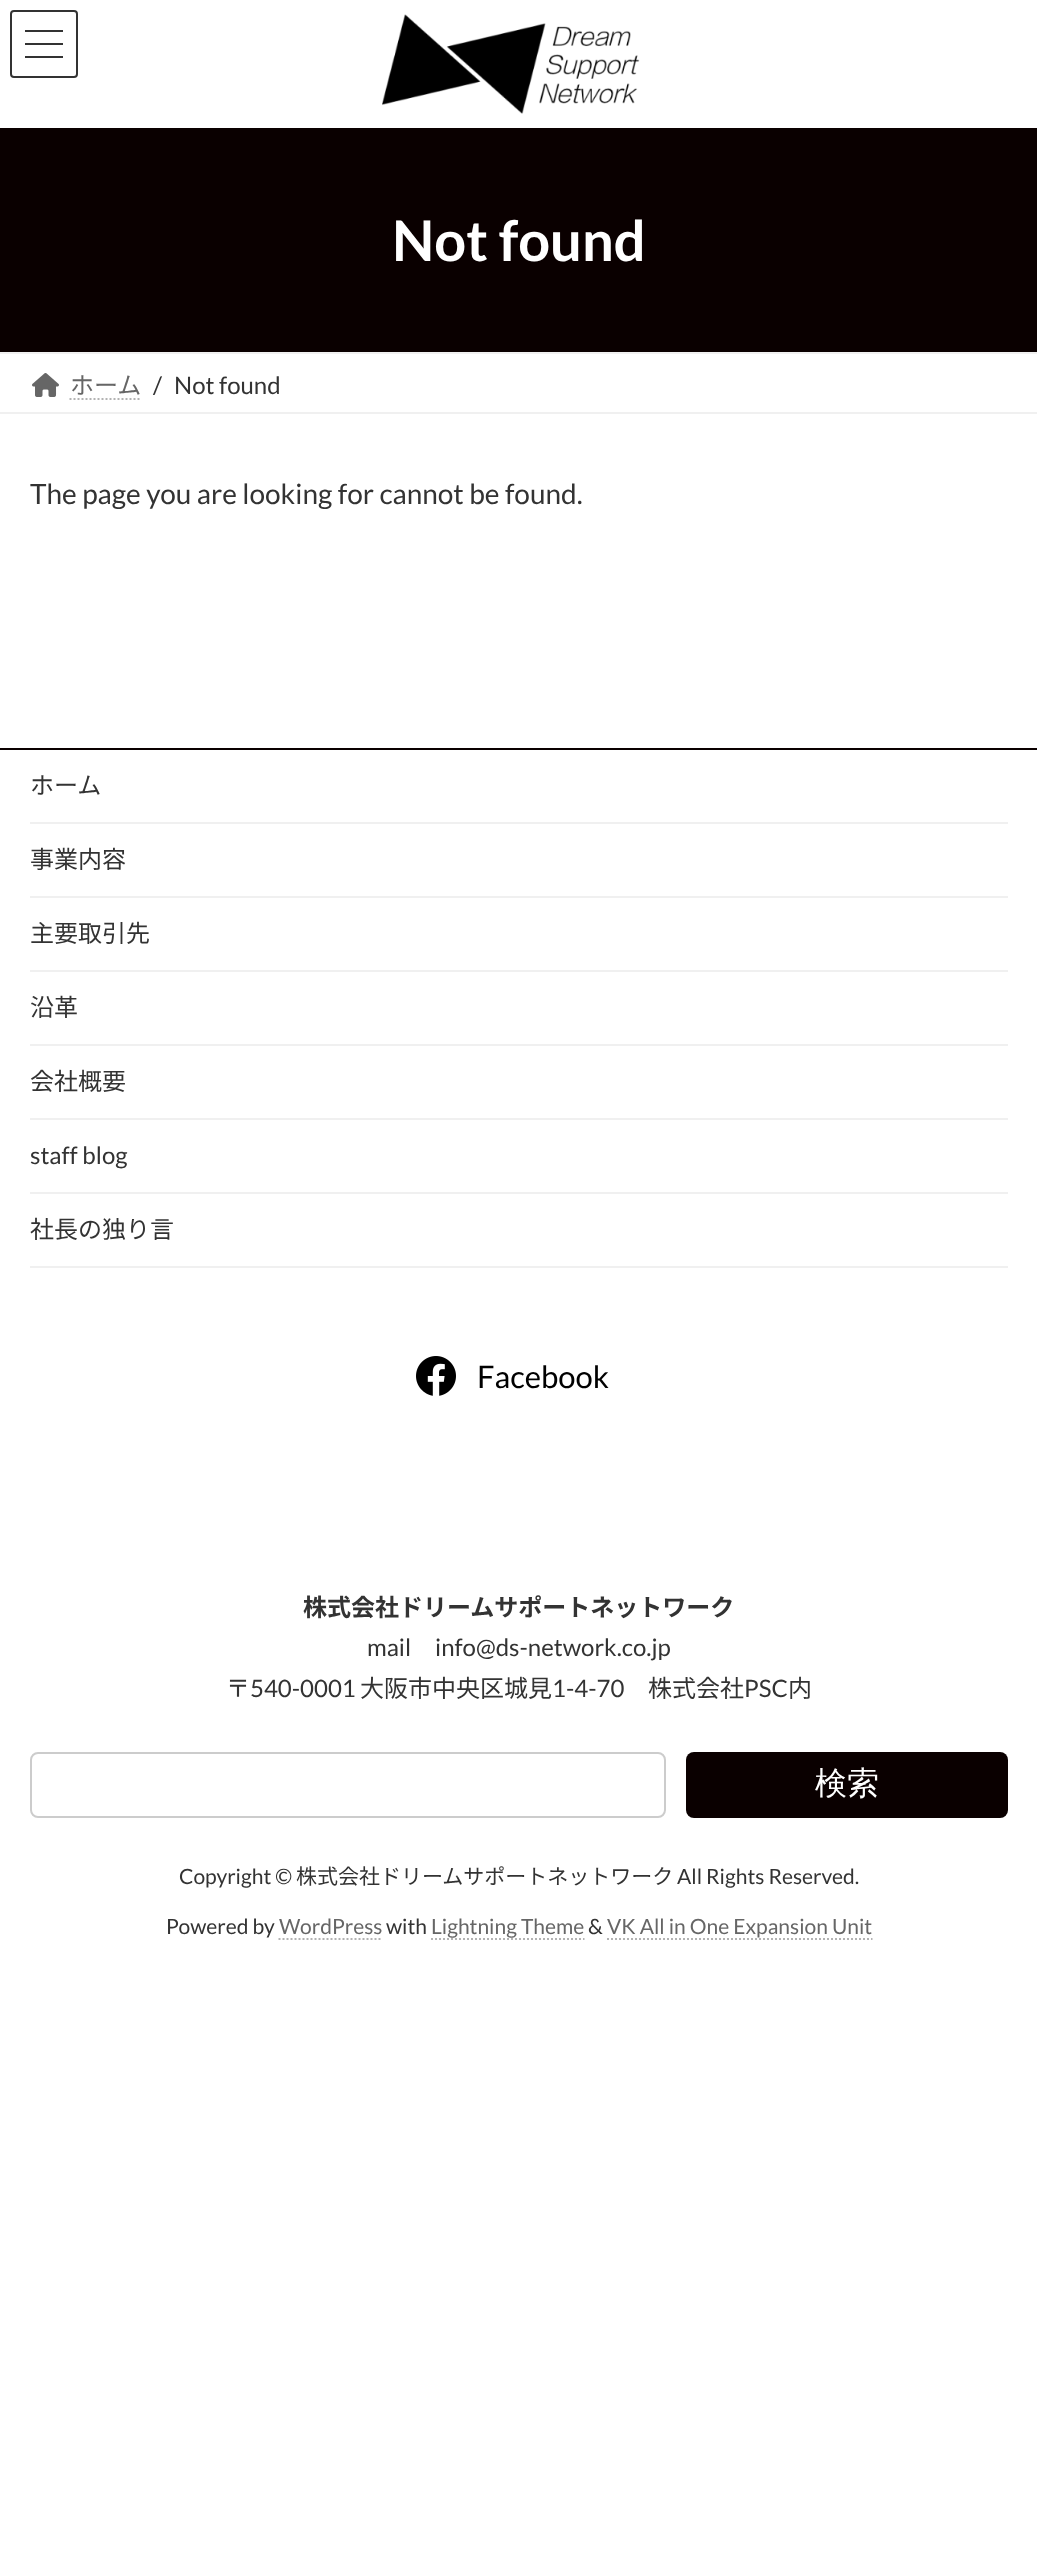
<?xml version="1.0" encoding="UTF-8"?>
<svg xmlns="http://www.w3.org/2000/svg" width="1037" height="2567">
    <rect width="100%" height="100%" fill="#FFFFFF"/>
    <rect x="25" y="30" width="38" height="2" fill="#333333"/>
    <rect x="25" y="43" width="38" height="2" fill="#333333"/>
    <rect x="25" y="56" width="38" height="2" fill="#333333"/>
    <rect x="11" y="11" width="66" height="66" rx="3" fill="none" stroke="#333333" stroke-width="2"/>
    <image x="382" y="14" width="258" height="100" href="img_01.png"/>
    <rect x="0" y="128" width="1037" height="224" fill="#0A0000"/>
    <text x="392" y="261" font-family="Lato" font-size="56" font-weight="700" fill="#FFFFFF">Not found</text>
    <rect x="0" y="352" width="1037" height="2" fill="#F0F0F0"/>
    <rect x="0" y="412" width="1037" height="2" fill="#F0F0F0"/>
    <image x="32" y="373" width="27" height="24" href="img_02.png"/>
    <text x="70" y="394" font-family="Noto Sans JP" font-size="24" fill="#666666">ホーム</text>
    <path d="M 69.5 399 H 141" fill="none" stroke="#B3B3B3" stroke-width="2" stroke-dasharray="2 2"/>
    <text x="153" y="394" font-family="Lato" font-size="24" fill="#333333">/</text>
    <text x="174" y="394" font-family="Lato" font-size="24" fill="#333333">Not found</text>
    <text x="30" y="504" font-family="Lato" font-size="28" fill="#333333">The page you are looking for cannot be found.</text>
    <rect x="0" y="748" width="1037" height="2" fill="#0A0000"/>
    <rect x="30" y="822" width="978" height="2" fill="#F0F0F0"/>
    <text x="30" y="794" font-family="Noto Sans JP" font-size="24" fill="#333333">ホーム</text>
    <rect x="30" y="896" width="978" height="2" fill="#F0F0F0"/>
    <text x="30" y="868" font-family="Noto Sans JP" font-size="24" fill="#333333">事業内容</text>
    <rect x="30" y="970" width="978" height="2" fill="#F0F0F0"/>
    <text x="30" y="942" font-family="Noto Sans JP" font-size="24" fill="#333333">主要取引先</text>
    <rect x="30" y="1044" width="978" height="2" fill="#F0F0F0"/>
    <text x="30" y="1016" font-family="Noto Sans JP" font-size="24" fill="#333333">沿革</text>
    <rect x="30" y="1118" width="978" height="2" fill="#F0F0F0"/>
    <text x="30" y="1090" font-family="Noto Sans JP" font-size="24" fill="#333333">会社概要</text>
    <rect x="30" y="1192" width="978" height="2" fill="#F0F0F0"/>
    <text x="30" y="1164" font-family="Lato" font-size="24" fill="#333333">staff blog</text>
    <rect x="30" y="1266" width="978" height="2" fill="#F0F0F0"/>
    <text x="30" y="1238" font-family="Noto Sans JP" font-size="24" fill="#333333">社長の独り言</text>
    <image x="416" y="1356" width="40" height="40" href="img_03.png"/>
    <text x="477" y="1388" font-family="Lato" font-size="31" fill="#000000">Facebook</text>
    <text x="303" y="1616" font-family="Noto Sans JP" font-size="24" font-weight="700" fill="#333333">株式会社ドリームサポートネットワーク</text>
    <text x="367" y="1656" font-family="Lato" font-size="24" fill="#333333">mail</text>
    <text x="435" y="1656" font-family="Lato" font-size="24" fill="#333333">info@ds-network.co.jp</text>
    <text x="226" y="1697" font-family="Noto Sans JP" font-size="24" fill="#333333">〒</text>
    <text x="250" y="1697" font-family="Lato" font-size="24" fill="#333333">540-0001</text>
    <text x="360" y="1697" font-family="Noto Sans JP" font-size="24" fill="#333333">大阪市中央区城見</text>
    <text x="552" y="1697" font-family="Lato" font-size="24" fill="#333333">1-4-70</text>
    <text x="648" y="1697" font-family="Noto Sans JP" font-size="24" fill="#333333">株式会社</text>
    <text x="744" y="1697" font-family="Lato" font-size="24" fill="#333333">PSC</text>
    <text x="788" y="1697" font-family="Noto Sans JP" font-size="24" fill="#333333">内</text>
    <rect x="31" y="1753" width="634" height="64" rx="7" fill="none" stroke="#CCCCCC" stroke-width="2"/>
    <rect x="686" y="1752" width="322" height="66" rx="8" fill="#0A0000"/>
    <text x="815" y="1794" font-family="WenQuanYi Zen Hei" font-size="32" font-weight="500" fill="#FFFFFF">検索</text>
    <text x="179" y="1884" font-family="Lato" font-size="21" fill="#333333">Copyright ©</text>
    <text x="296" y="1884" font-family="Noto Sans JP" font-size="21" fill="#333333">株式会社ドリームサポートネットワーク</text>
    <text x="677" y="1884" font-family="Lato" font-size="21" fill="#333333">All Rights Reserved.</text>
    <text x="166" y="1934" font-family="Lato" font-size="21" fill="#333333">Powered by</text>
    <text x="279" y="1934" font-family="Lato" font-size="21" fill="#666666">WordPress</text>
    <path d="M 278.5 1939 H 382" fill="none" stroke="#B3B3B3" stroke-width="2" stroke-dasharray="2 2"/>
    <text x="386" y="1934" font-family="Lato" font-size="21" fill="#333333">with</text>
    <text x="431" y="1934" font-family="Lato" font-size="21" fill="#666666">Lightning Theme</text>
    <path d="M 431 1939 H 584.5" fill="none" stroke="#B3B3B3" stroke-width="2" stroke-dasharray="2 2"/>
    <text x="588" y="1934" font-family="Lato" font-size="21" fill="#333333">&amp;</text>
    <text x="607" y="1934" font-family="Lato" font-size="21" fill="#666666">VK All in One Expansion Unit</text>
    <path d="M 607 1939 H 872.5" fill="none" stroke="#B3B3B3" stroke-width="2" stroke-dasharray="2 2"/>
</svg>
